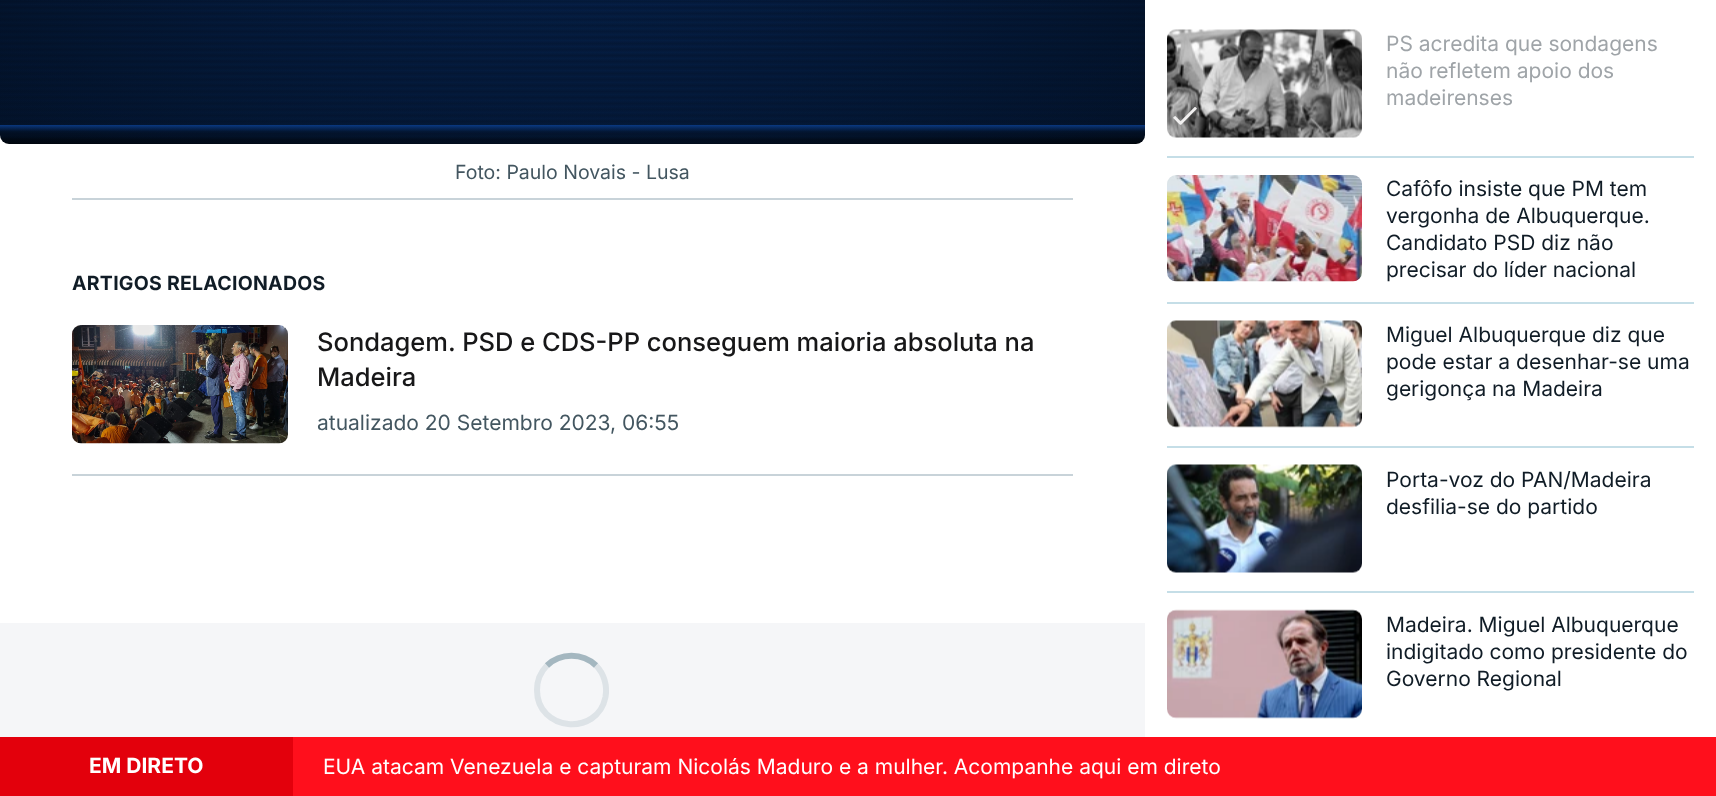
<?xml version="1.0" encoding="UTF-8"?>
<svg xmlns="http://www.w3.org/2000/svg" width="1716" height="796">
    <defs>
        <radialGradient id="g1" gradientUnits="userSpaceOnUse" cx="0" cy="0" r="1" gradientTransform="matrix(809 0 0 455 572 -178)"><stop offset="0" stop-color="#06224D"/><stop offset="1" stop-color="#01060D"/></radialGradient>
        <linearGradient id="g2" gradientUnits="userSpaceOnUse" x1="572" y1="144" x2="572" y2="-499"><stop offset="0" stop-color="#0D47A1" stop-opacity="0"/><stop offset="0.02" stop-color="#0D47A1" stop-opacity="0.2"/><stop offset="0.03" stop-color="#0D47A1" stop-opacity="0.8"/><stop offset="0.03" stop-color="#0D47A1" stop-opacity="0.2"/><stop offset="1" stop-color="#0D47A1" stop-opacity="0"/></linearGradient>
    </defs>
    <rect width="100%" height="100%" fill="#F5F6F8"/>
    <rect x="0" y="135" width="1145" height="488" fill="#FFFFFF"/>
    <rect x="0" y="-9" width="1145" height="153" rx="9" fill="url(#g1)"/>
    <image x="0" y="0" width="1145" height="144" href="img_01.png"/>
    <rect x="0" y="-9" width="1145" height="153" rx="9" fill="url(#g2)"/>
    <rect x="72" y="198" width="1001" height="2" fill="#C8D3D9"/>
    <text x="455" y="179" font-family="Inter" font-size="19.5" fill="#435660">Foto: Paulo Novais - Lusa</text>
    <text x="72" y="290" font-family="Inter" font-size="19.5" font-weight="700" letter-spacing="0.25" fill="#101C26">ARTIGOS RELACIONADOS</text>
    <rect x="72" y="474" width="1001" height="2" fill="#C8D3D9"/>
    <image x="72" y="325" width="216" height="119" href="img_02.png"/>
    <text font-family="Inter" font-size="25.5" font-weight="500" fill="#171718">
        <tspan x="317" y="351">Sondagem. PSD e CDS-PP conseguem maioria absoluta na</tspan>
        <tspan x="317" y="386">Madeira</tspan>
    </text>
    <text x="317" y="430" font-family="Inter" font-size="21" fill="#435660">atualizado 20 Setembro 2023, 06:55</text>
    <path d="M 547 665.5 C 560.5 652.5 582.5 652.5 596 665.5" fill="none" stroke="#A4B7C0" stroke-width="6"/>
    <path d="M 596 665.5 C 604 673.5 607.5 685.5 605.5 697 C 597.5 737 537 731.5 537 690 C 537 681 540.5 672 547 665.5" fill="none" stroke="#A4B7C0" stroke-opacity="0.3" stroke-width="6"/>
    <rect x="1145" y="0" width="571" height="737" fill="#FFFFFF"/>
    <rect x="1167" y="156" width="527" height="2" fill="#C5DEE7"/>
    <image x="1167" y="29" width="195" height="109" href="img_03.png"/>
    <image x="1173" y="107" width="24" height="18" href="img_04.png"/>
    <text font-family="Inter" font-size="21" fill="#9FA4A8">
        <tspan x="1386" y="51">PS acredita que sondagens</tspan>
        <tspan x="1386" y="78">não refletem apoio dos</tspan>
        <tspan x="1386" y="105">madeirenses</tspan>
    </text>
    <rect x="1167" y="302" width="527" height="2" fill="#C5DEE7"/>
    <image x="1167" y="175" width="195" height="107" href="img_05.png"/>
    <text font-family="Inter" font-size="21" fill="#101C26">
        <tspan x="1386" y="196">Cafôfo insiste que PM tem</tspan>
        <tspan x="1386" y="223">vergonha de Albuquerque.</tspan>
        <tspan x="1386" y="250">Candidato PSD diz não</tspan>
        <tspan x="1386" y="277">precisar do líder nacional</tspan>
    </text>
    <rect x="1167" y="446" width="527" height="2" fill="#C5DEE7"/>
    <image x="1167" y="320" width="195" height="108" href="img_06.png"/>
    <text font-family="Inter" font-size="21" fill="#101C26">
        <tspan x="1386" y="342">Miguel Albuquerque diz que</tspan>
        <tspan x="1386" y="369">pode estar a desenhar-se uma</tspan>
        <tspan x="1386" y="396">gerigonça na Madeira</tspan>
    </text>
    <rect x="1167" y="591" width="527" height="2" fill="#C5DEE7"/>
    <image x="1167" y="464" width="195" height="109" href="img_07.png"/>
    <text font-family="Inter" font-size="21" fill="#101C26">
        <tspan x="1386" y="487">Porta-voz do PAN/Madeira</tspan>
        <tspan x="1386" y="514">desfilia-se do partido</tspan>
    </text>
    <image x="1167" y="609" width="195" height="110" href="img_08.png"/>
    <text font-family="Inter" font-size="21" fill="#101C26">
        <tspan x="1386" y="632">Madeira. Miguel Albuquerque</tspan>
        <tspan x="1386" y="659">indigitado como presidente do</tspan>
        <tspan x="1386" y="686">Governo Regional</tspan>
    </text>
    <rect x="293" y="737" width="1423" height="59" fill="#FF0F1C"/>
    <rect x="0" y="737" width="293" height="59" fill="#E3000C"/>
    <text x="89" y="773" font-family="Inter" font-size="21" font-weight="700" fill="#FFFFFF">EM DIRETO</text>
    <text x="323" y="774" font-family="Inter" font-size="21" fill="#FFFFFF">EUA atacam Venezuela e capturam Nicolás Maduro e a mulher. Acompanhe aqui em direto</text>
</svg>
